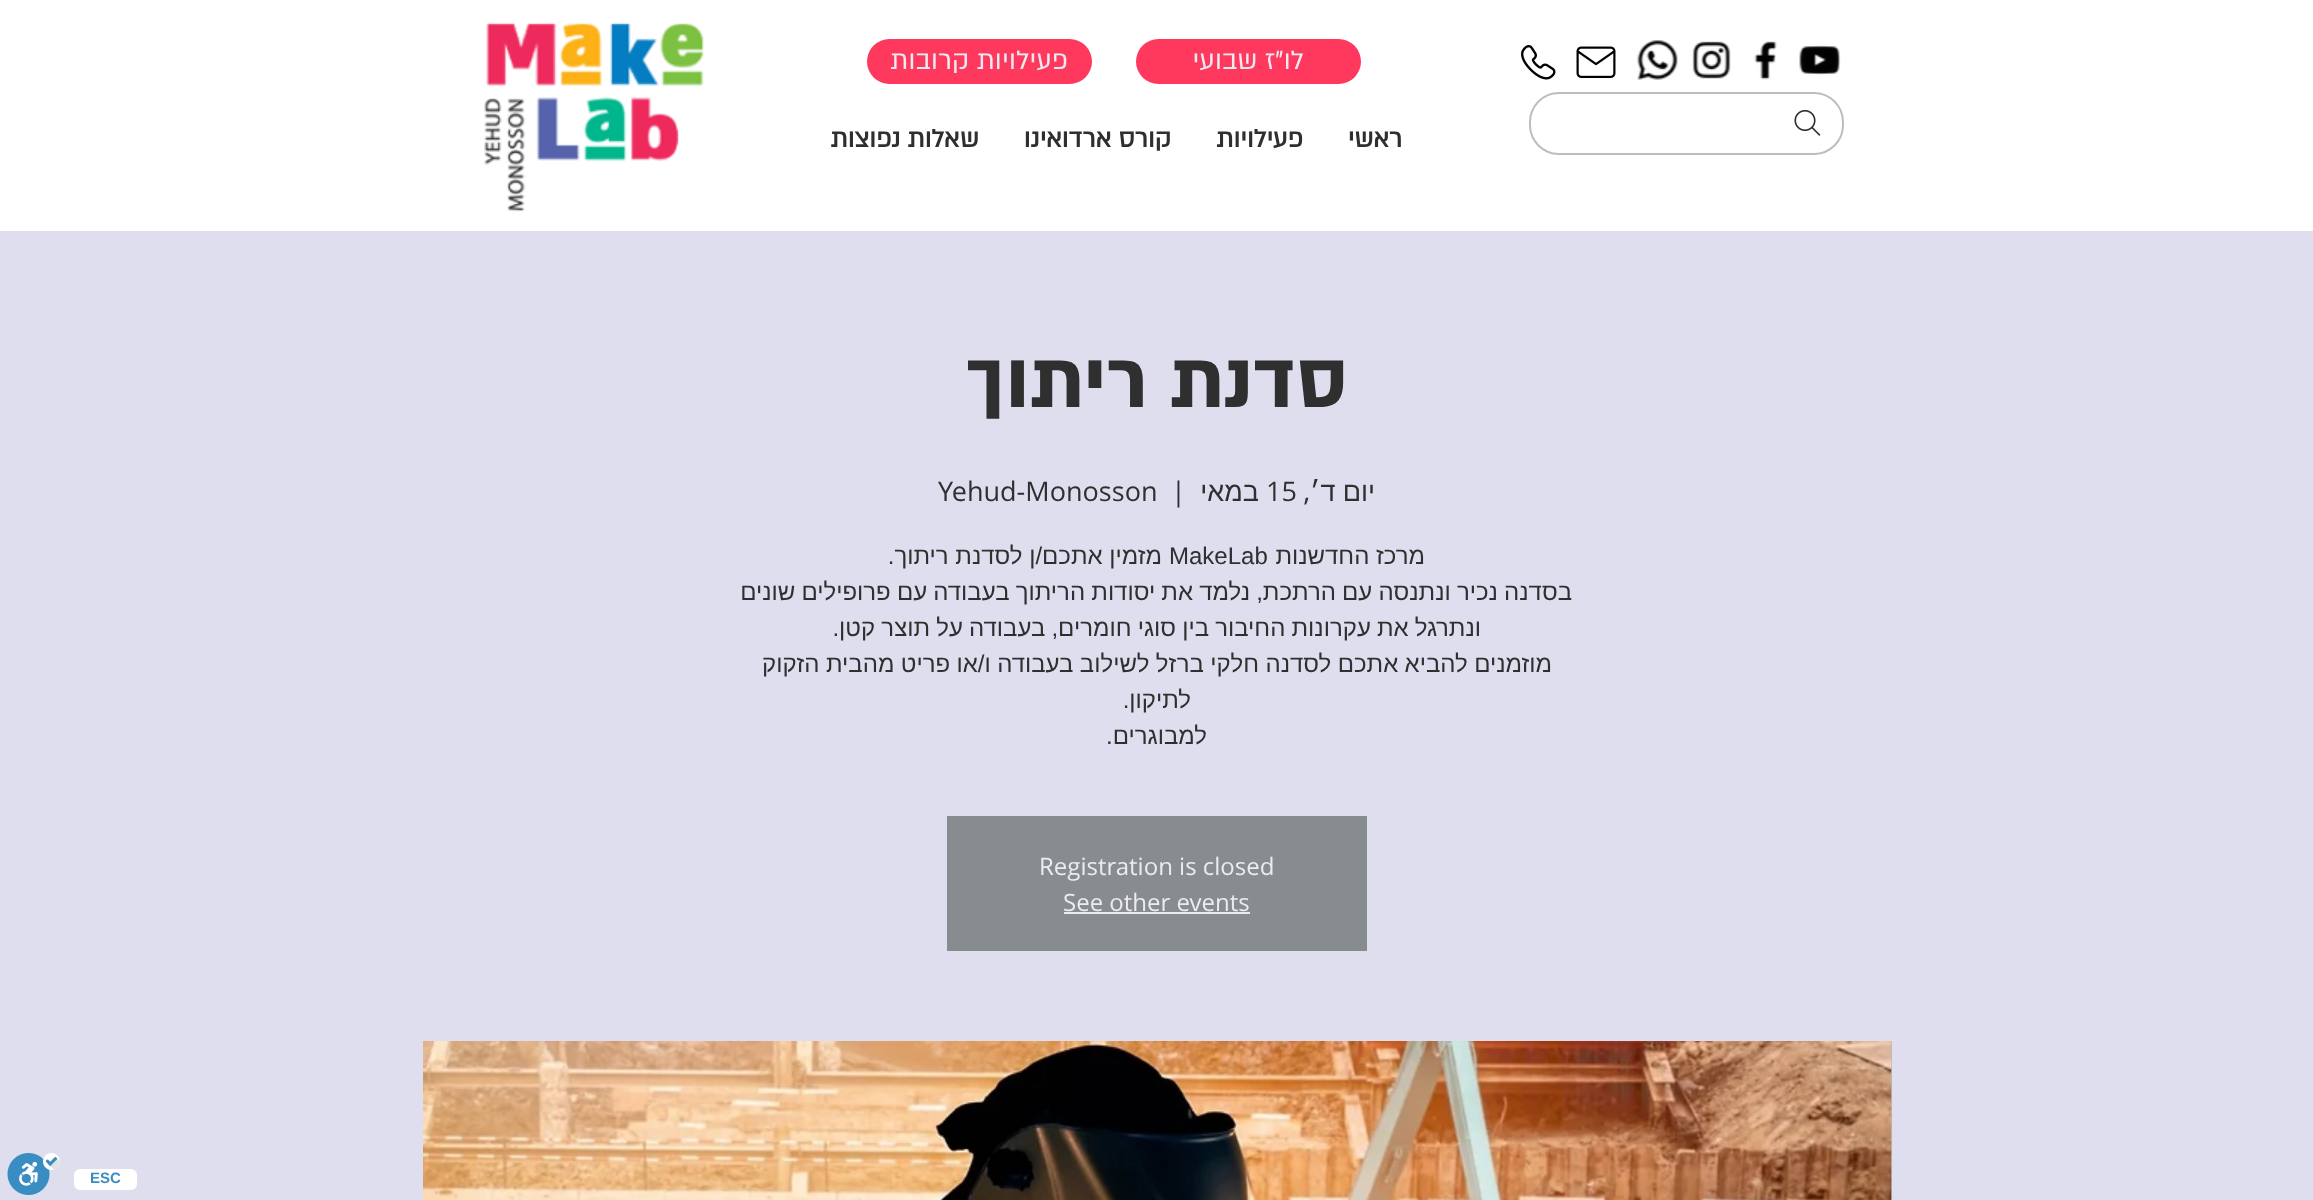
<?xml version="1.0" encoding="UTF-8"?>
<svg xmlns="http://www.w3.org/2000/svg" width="2313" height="1200">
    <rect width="100%" height="100%" fill="#DEDEEE"/>
    <rect x="0" y="0" width="2313" height="231" fill="#FFFFFF"/>
    <image x="1799" y="45" width="42" height="30" href="img_01.png"/>
    <image x="1754" y="41" width="23" height="39" href="img_02.png"/>
    <image x="1692" y="41" width="39" height="38" href="img_03.png"/>
    <image x="1637" y="40" width="41" height="40" href="img_04.png"/>
    <image x="1576" y="46" width="40" height="32" href="img_05.png"/>
    <image x="1521" y="45" width="35" height="35" href="img_06.png"/>
    <rect x="1136" y="39" width="225" height="45" rx="22.5" fill="#FF385D"/>
    <text x="1304" y="69" font-family="'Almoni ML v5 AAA'" font-size="30" direction="rtl" fill="#EDEBF2">לו"ז שבועי</text>
    <rect x="867" y="39" width="225" height="45" rx="22.5" fill="#FF385D"/>
    <text x="1068" y="69" font-family="'Almoni ML v5 AAA'" font-size="30" direction="rtl" fill="#EDEBF2">פעילויות קרובות</text>
    <image x="484" y="22" width="220" height="190" href="img_07.png"/>
    <rect x="1530" y="93" width="313" height="61" rx="29" fill="none" stroke="#BEBCC2" stroke-width="2"/>
    <image x="1794" y="109" width="27" height="27" href="img_08.png"/>
    <text x="1402" y="147" font-family="'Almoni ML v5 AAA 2'" font-size="28.5" font-weight="700" direction="rtl" fill="#2F2F30">ראשי</text>
    <text x="1303" y="147" font-family="'Almoni ML v5 AAA 2'" font-size="28.5" font-weight="700" direction="rtl" fill="#2F2F30">פעילויות</text>
    <text x="1171" y="147" font-family="'Almoni ML v5 AAA 2'" font-size="28.5" font-weight="700" direction="rtl" fill="#2F2F30">קורס ארדואינו</text>
    <text x="979" y="147" font-family="'Almoni ML v5 AAA 2'" font-size="28.5" font-weight="700" direction="rtl" fill="#2F2F30">שאלות נפוצות</text>
    <text x="1348" y="407" font-family="'Almoni ML v5 AAA'" font-size="90" font-weight="700" direction="rtl" fill="#2F2F30">סדנת ריתוך</text>
    <text x="1375" y="501" word-spacing="-0.25" font-family="Liberation Sans" font-size="27" direction="rtl" fill="#2F2F30">יום ד׳</text>
    <text x="1310" y="501" font-family="Open Sans" font-size="27" direction="rtl" fill="#2F2F30">,</text>
    <text x="1266" y="501" font-family="Open Sans" font-size="27" fill="#2F2F30">15</text>
    <text x="1259" y="501" font-family="Liberation Sans" font-size="27" direction="rtl" fill="#2F2F30">במאי</text>
    <text x="1171" y="501" font-family="Open Sans" font-size="27" fill="#2F2F30">|</text>
    <text x="938" y="501" font-family="Open Sans" font-size="27" fill="#2F2F30">Yehud-Monosson</text>
    <text x="1425" y="564" font-family="Liberation Sans" font-size="24" direction="rtl" fill="#2F2F30">מרכז החדשנות</text>
    <text x="1169" y="564" font-family="Liberation Sans" font-size="24" fill="#2F2F30">MakeLab</text>
    <text x="1162" y="564" font-family="Liberation Sans" font-size="24" direction="rtl" fill="#2F2F30">מזמין אתכם/ן לסדנת ריתוך.</text>
    <text x="1572" y="600" word-spacing="-0.5" font-family="Liberation Sans" font-size="24" direction="rtl" fill="#2F2F30">בסדנה נכיר ונתנסה עם הרתכת, נלמד את יסודות הריתוך בעבודה עם פרופילים שונים</text>
    <text x="1481" y="636" word-spacing="-0.5" font-family="Liberation Sans" font-size="24" direction="rtl" fill="#2F2F30">ונתרגל את עקרונות החיבור בין סוגי חומרים, בעבודה על תוצר קטן.</text>
    <text x="1552" y="672" word-spacing="-0.25" font-family="Liberation Sans" font-size="24" direction="rtl" fill="#2F2F30">מוזמנים להביא אתכם לסדנה חלקי ברזל לשילוב בעבודה ו/או פריט מהבית הזקוק</text>
    <text x="1191" y="708" font-family="Liberation Sans" font-size="24" direction="rtl" fill="#2F2F30">לתיקון.</text>
    <text x="1207" y="744" font-family="Liberation Sans" font-size="24" direction="rtl" fill="#2F2F30">למבוגרים.</text>
    <rect x="947" y="816" width="420" height="135" fill="#878D8F"/>
    <text x="1039" y="875" font-family="Open Sans" font-size="24" fill="#EDEBF2">Registration is closed</text>
    <text x="1063" y="911" font-family="Open Sans" font-size="24" fill="#EDEBF2">See other events</text>
    <rect x="1064" y="912" width="186" height="2" fill="#EDEBF2"/>
    <rect x="1891" y="1041" width="1" height="159" fill="#B4BCBF"/>
    <image x="423" y="1041" width="1469" height="159" href="img_09.png"/>
    <rect x="74" y="1169" width="63" height="21" rx="6" fill="#FFFFFF"/>
    <text x="90" y="1183" font-family="Liberation Sans" font-size="15" font-weight="700" fill="#3A8DC2">ESC</text>
    <image x="7" y="1153" width="53" height="42" href="img_10.png"/>
</svg>
